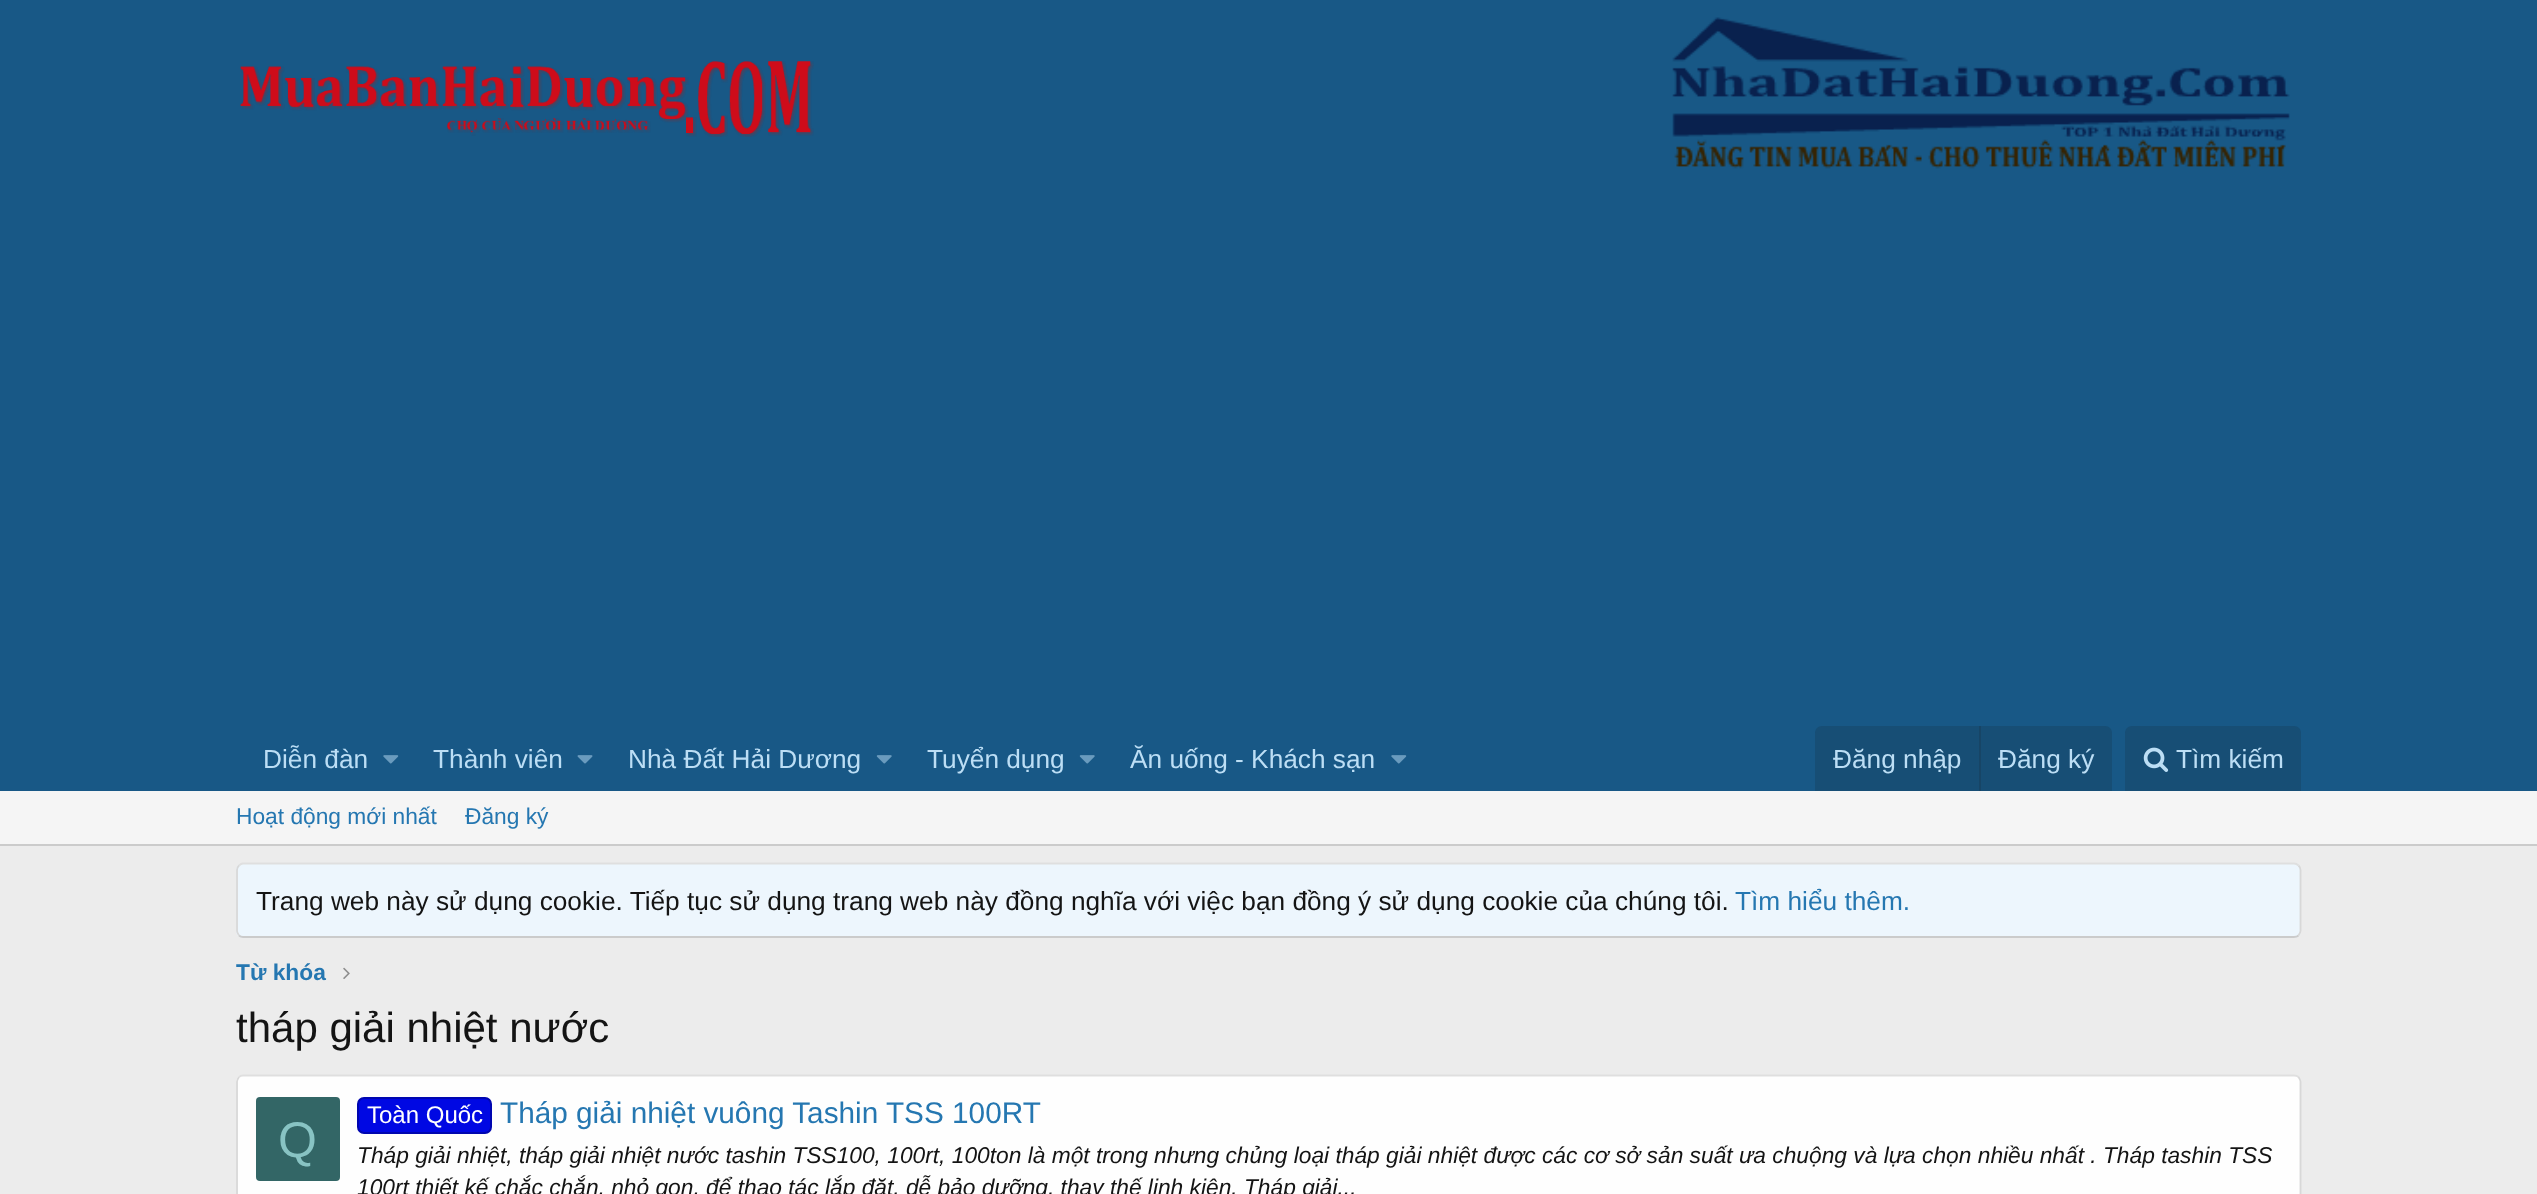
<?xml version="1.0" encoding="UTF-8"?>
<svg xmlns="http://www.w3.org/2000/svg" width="2537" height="1194">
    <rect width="100%" height="100%" fill="#ECECEC"/>
    <rect x="0" y="0" width="2537" height="791" fill="#185886"/>
    <image x="240" y="61" width="574" height="76" href="img_01.png"/>
    <image x="1672" y="17" width="618" height="152" href="img_02.png"/>
    <text x="263" y="768" font-family="Liberation Sans" font-size="26.25" fill="#BCDEF5">Diễn đàn</text>
    <image x="383" y="755" width="16" height="9" href="img_03.png"/>
    <text x="433" y="768" font-family="Liberation Sans" font-size="26.25" fill="#BCDEF5">Thành viên</text>
    <image x="577" y="755" width="16" height="9" href="img_04.png"/>
    <text x="628" y="768" font-family="Liberation Sans" font-size="26.25" fill="#BCDEF5">Nhà Đất Hải Dương</text>
    <image x="876" y="755" width="16" height="9" href="img_05.png"/>
    <text x="927" y="768" font-family="Liberation Sans" font-size="26.25" fill="#BCDEF5">Tuyển dụng</text>
    <image x="1079" y="755" width="16" height="9" href="img_05.png"/>
    <text x="1130" y="768" font-family="Liberation Sans" font-size="26.25" fill="#BCDEF5">Ăn uống - Khách sạn</text>
    <image x="1391" y="755" width="16" height="9" href="img_03.png"/>
    <path d="M 1822 726 H 2105 C 2109 726 2112 729 2112 733 V 791 H 1815 V 733 C 1815 729 1818 726 1822 726 Z" fill="#174E75"/>
    <text x="1833" y="768" font-family="Liberation Sans" font-size="26.25" fill="#BCDEF5">Đăng nhập</text>
    <rect x="1979" y="726" width="2" height="65" fill="#174566"/>
    <text x="1998" y="768" font-family="Liberation Sans" font-size="26.25" fill="#BCDEF5">Đăng ký</text>
    <path d="M 2132 726 H 2294 C 2298 726 2301 729 2301 733 V 791 H 2125 V 733 C 2125 729 2128 726 2132 726 Z" fill="#174E75"/>
    <image x="2143" y="747" width="26" height="25" href="img_06.png"/>
    <text x="2176" y="768" font-family="Liberation Sans" font-size="26.25" fill="#BCDEF5">Tìm kiếm</text>
    <rect x="0" y="791" width="2537" height="53" fill="#F5F5F5"/>
    <rect x="0" y="844" width="2537" height="2" fill="#CBCBCB"/>
    <text x="236" y="824" font-family="Liberation Sans" font-size="22.75" fill="#2577B1">Hoạt động mới nhất</text>
    <text x="465" y="824" font-family="Liberation Sans" font-size="22.75" fill="#2577B1">Đăng ký</text>
    <rect x="236" y="863" width="2065" height="75" rx="7" fill="#EDF6FD"/>
    <path d="M 239 865.5 C 240 864.5 241.5 863.5 243 863.5 H 2294 C 2296 863.5 2297.5 864.5 2298.5 865.5" fill="none" stroke="#DFDFDF" stroke-width="1.8"/>
    <path d="M 2298.5 865.5 C 2299.5 866.5 2300.5 868 2300.5 870 V 931 C 2300.5 932.5 2299.5 934 2298.5 935.5" fill="none" stroke="#D8D8D8" stroke-width="1.8"/>
    <path d="M 2298.5 935.5 C 2297.5 936.5 2296 937 2294 937 H 243 C 241.5 937 240 936.5 239 935.5" fill="none" stroke="#CBCBCB" stroke-width="1.8"/>
    <path d="M 239 935.5 C 238 934 237 932.5 237 931 V 870 C 237 868 238 866.5 239 865.5" fill="none" stroke="#D8D8D8" stroke-width="1.8"/>
    <text x="256" y="910" font-family="Liberation Sans" font-size="26.25" fill="#141414">Trang web này sử dụng cookie. Tiếp tục sử dụng trang web này đồng nghĩa với việc bạn đồng ý sử dụng cookie của chúng tôi.</text>
    <text x="1735" y="910" font-family="Liberation Sans" font-size="26.25" fill="#2577B1">Tìm hiểu thêm.</text>
    <text x="236" y="980" font-family="Liberation Sans" font-size="22.75" font-weight="700" fill="#2577B1">Từ khóa</text>
    <image x="343" y="967" width="7" height="12" href="img_07.png"/>
    <text x="236" y="1042" font-family="Liberation Sans" font-size="42" fill="#141414">tháp giải nhiệt nước</text>
    <rect x="236" y="1075" width="2065" height="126" rx="7" fill="#FEFEFE"/>
    <path d="M 239 1077 C 240 1076 241.5 1075.5 243 1075.5 H 2294 C 2296 1075.5 2297.5 1076 2298.5 1077" fill="none" stroke="#DFDFDF" stroke-width="1.8"/>
    <path d="M 2298.5 1077 C 2299.5 1078.5 2300.5 1080 2300.5 1081.5 V 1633 C 2300.5 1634.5 2299.5 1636 2298.5 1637" fill="none" stroke="#D8D8D8" stroke-width="1.8"/>
    <path d="M 239 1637 C 238 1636 237 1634.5 237 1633 V 1081.5 C 237 1080 238 1078.5 239 1077" fill="none" stroke="#D8D8D8" stroke-width="1.8"/>
    <rect x="256" y="1097" width="84" height="84" rx="4" fill="#336666"/>
    <text x="278" y="1157" font-family="Liberation Sans" font-size="50" fill="#88C3C3">Q</text>
    <rect x="358" y="1098" width="133" height="35" rx="6" fill="#0008E3" stroke="#0006B0" stroke-width="2"/>
    <text x="367" y="1123" font-family="Liberation Sans" font-size="24" fill="#FFFFFF">Toàn Quốc</text>
    <text x="500" y="1123" font-family="Liberation Sans" font-size="29.75" fill="#2577B1">Tháp giải nhiệt vuông Tashin TSS 100RT</text>
    <text font-family="Liberation Sans" font-size="22.75" font-style="italic" fill="#141414">
        <tspan x="357" y="1163">Tháp giải nhiệt, tháp giải nhiệt nước tashin TSS100, 100rt, 100ton là một trong nhưng chủng loại tháp giải nhiệt được các cơ sở sản suất ưa chuộng và lựa chọn nhiều nhất . Tháp tashin TSS</tspan>
        <tspan x="357" y="1195">100rt thiết kế chắc chắn, nhỏ gọn, để thao tác lắp đặt, dễ bảo dưỡng, thay thế linh kiện. Tháp giải...</tspan>
    </text>
</svg>
